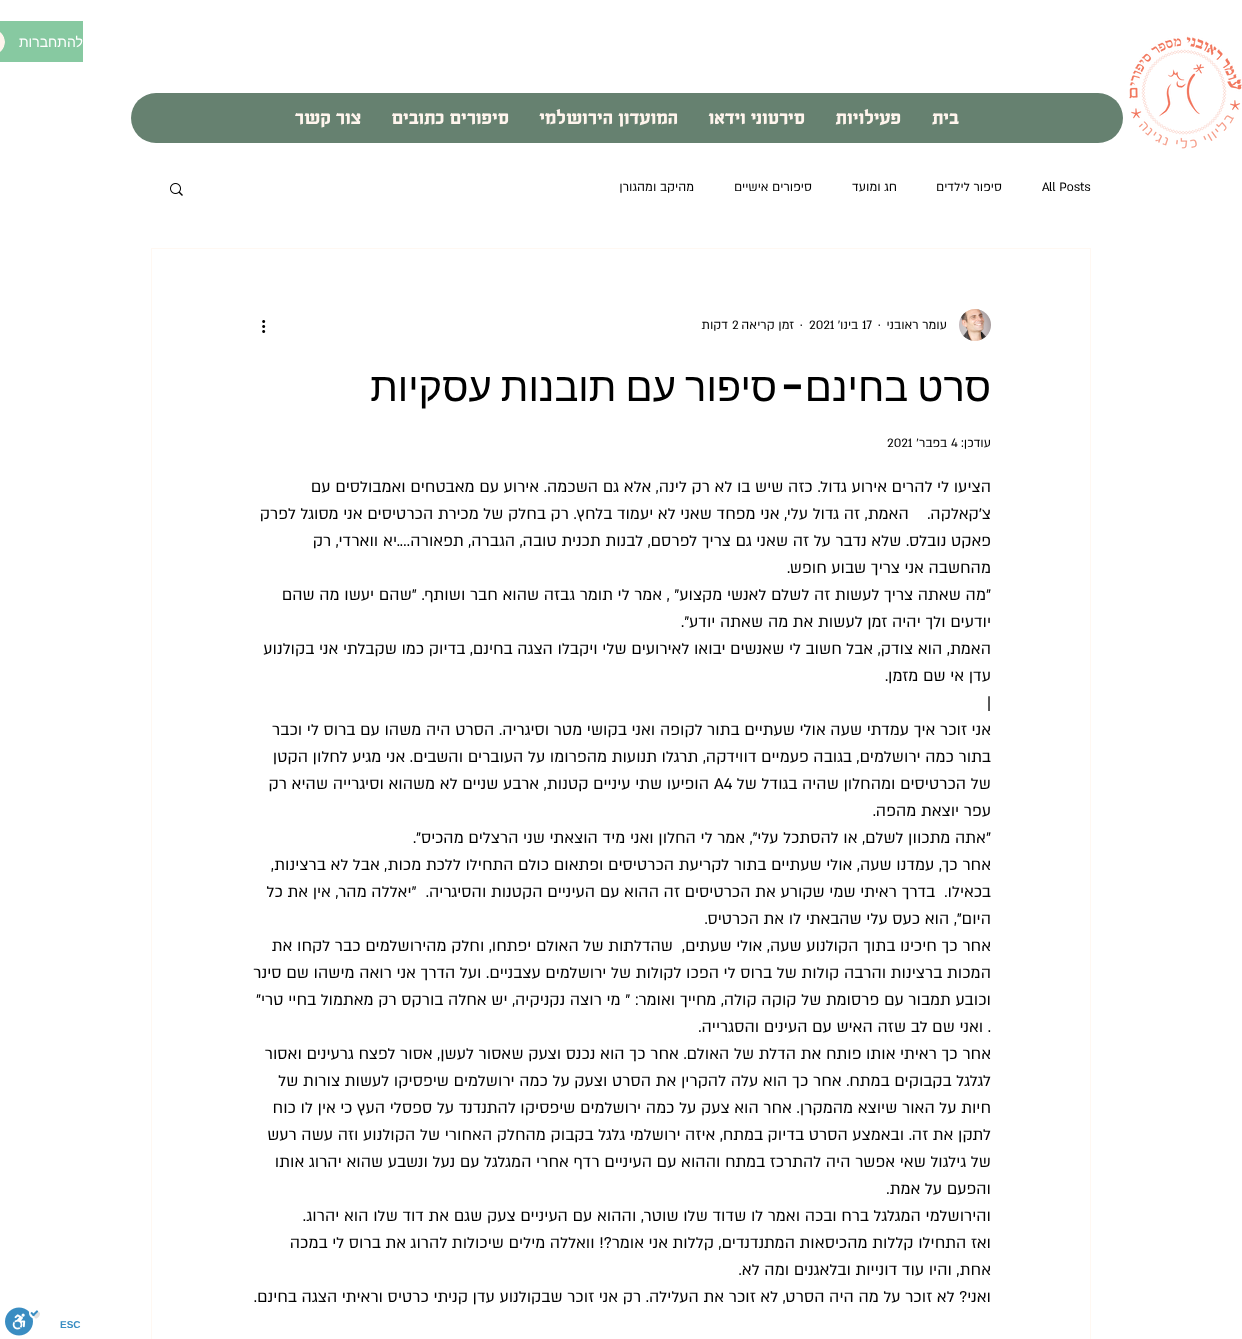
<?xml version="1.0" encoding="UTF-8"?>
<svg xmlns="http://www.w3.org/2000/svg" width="1242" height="1339">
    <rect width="100%" height="100%" fill="#FFFFFF"/>
    <image x="1129" y="36" width="113" height="113" href="img_01.png"/>
    <rect x="131" y="93" width="992" height="50" rx="25" fill="#668170"/>
    <text x="959" y="124" font-family="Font" font-size="20" font-weight="700" direction="rtl" fill="#FFF5ED">בית</text>
    <text x="901" y="124" font-family="Font" font-size="20" font-weight="700" direction="rtl" fill="#FFF5ED">פעילויות</text>
    <text x="805" y="124" font-family="Font" font-size="20" font-weight="700" direction="rtl" fill="#FFF5ED">סירטוני וידאו</text>
    <text x="678" y="124" font-family="Font" font-size="20" font-weight="700" direction="rtl" fill="#FFF5ED">המועדון הירושלמי</text>
    <text x="509" y="124" font-family="Font" font-size="20" font-weight="700" direction="rtl" fill="#FFF5ED">סיפורים כתובים</text>
    <text x="361" y="124" font-family="Font" font-size="20" font-weight="700" direction="rtl" fill="#FFF5ED">צור קשר</text>
    <rect x="0" y="21" width="83" height="41" fill="#87C9A1"/>
    <text x="83" y="47" font-family="Liberation Sans" font-size="14" direction="rtl" fill="#FFFFFF">להתחברות</text>
    <image x="0" y="32" width="5" height="20" href="img_02.png"/>
    <text x="1042" y="191" font-family="'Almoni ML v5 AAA'" font-size="14" fill="#000000">All Posts</text>
    <text x="1002" y="191" font-family="'Almoni ML v5 AAA'" font-size="14" direction="rtl" fill="#000000">סיפור לילדים</text>
    <text x="897" y="191" font-family="'Almoni ML v5 AAA'" font-size="14" direction="rtl" fill="#000000">חג ומועד</text>
    <text x="812" y="191" font-family="'Almoni ML v5 AAA'" font-size="14" direction="rtl" fill="#000000">סיפורים אישיים</text>
    <text x="694" y="191" font-family="'Almoni ML v5 AAA'" font-size="14" direction="rtl" fill="#000000">מהיקב ומהגורן</text>
    <image x="170" y="183" width="13" height="13" href="img_03.png"/>
    <rect x="151.5" y="248.5" width="939" height="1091" fill="none" stroke="#FFF8F2"/>
    <image x="959" y="309" width="32" height="32" href="img_04.png"/>
    <text x="947" y="329" font-family="'Almoni ML v5 AAA'" font-size="14" direction="rtl" fill="#000000">עומר ראובני</text>
    <text x="878" y="329" font-family="'Almoni ML v5 AAA'" font-size="14" fill="#000000">·</text>
    <text x="862" y="329" font-family="'Almoni ML v5 AAA'" font-size="14" fill="#000000">17</text>
    <text x="858" y="329" font-family="'Almoni ML v5 AAA'" font-size="14" direction="rtl" fill="#000000">בינו׳</text>
    <text x="809" y="329" font-family="'Almoni ML v5 AAA'" font-size="14" fill="#000000">2021</text>
    <text x="800" y="329" font-family="'Almoni ML v5 AAA'" font-size="14" fill="#000000">·</text>
    <text x="794" y="329" font-family="'Almoni ML v5 AAA'" font-size="14" direction="rtl" fill="#000000">זמן קריאה</text>
    <text x="732" y="329" font-family="'Almoni ML v5 AAA'" font-size="14" fill="#000000">2</text>
    <text x="728" y="329" font-family="'Almoni ML v5 AAA'" font-size="14" direction="rtl" fill="#000000">דקות</text>
    <image x="262" y="320" width="4" height="13" href="img_05.png"/>
    <text x="991" y="401" word-spacing="-2" font-family="Liberation Sans" font-size="40" direction="rtl" fill="#000000">סרט בחינם</text>
    <text x="805" y="401" font-family="Poppins" font-size="40" font-weight="600" direction="rtl" fill="#000000">-</text>
    <text x="777" y="401" word-spacing="-2" font-family="Liberation Sans" font-size="40" direction="rtl" fill="#000000">סיפור עם תובנות עסקיות</text>
    <text x="991" y="447" font-family="'Almoni ML v5 AAA'" font-size="14" direction="rtl" fill="#000000">עודכן:</text>
    <text x="951" y="447" font-family="'Almoni ML v5 AAA'" font-size="14" fill="#000000">4</text>
    <text x="947" y="447" font-family="'Almoni ML v5 AAA'" font-size="14" direction="rtl" fill="#000000">בפבר׳</text>
    <text x="887" y="447" font-family="'Almoni ML v5 AAA'" font-size="14" fill="#000000">2021</text>
    <text font-family="'Almoni ML v5 AAA'" font-size="18" direction="rtl" fill="#000000" xml:space="preserve"><tspan x="991" y="492">הציעו לי להרים אירוע גדול. כזה שיש בו לא רק לינה, אלא גם השכמה. אירוע עם מאבטחים ואמבולסים עם</tspan><tspan x="991" y="519">צ'קאלקה.    האמת, זה גדול עלי, אני מפחד שאני לא יעמוד בלחץ. רק בחלק של מכירת הכרטיסים אני מסוגל לפרק</tspan><tspan x="991" y="546">פאקט נובלס. שלא נדבר על זה שאני גם צריך לפרסם, לבנות תכנית טובה, הגברה, תפאורה....יא ווארדי, רק</tspan><tspan x="991" y="573">מהחשבה אני צריך שבוע חופש.</tspan><tspan x="991" y="600">"מה שאתה צריך לעשות זה לשלם לאנשי מקצוע" , אמר לי תומר גבזה שהוא חבר ושותף. "שהם יעשו מה שהם</tspan><tspan x="991" y="627">יודעים ולך יהיה זמן לעשות את מה שאתה יודע".</tspan><tspan x="991" y="654">האמת, הוא צודק, אבל חשוב לי שאנשים יבואו לאירועים שלי ויקבלו הצגה בחינם, בדיוק כמו שקבלתי אני בקולנוע</tspan><tspan x="991" y="681">עדן אי שם מזמן.</tspan></text>
    <text x="987" y="708" font-family="'Almoni ML v5 AAA'" font-size="18" fill="#000000">|</text>
    <text font-family="'Almoni ML v5 AAA'" font-size="18" direction="rtl" fill="#000000">
        <tspan x="991" y="735">אני זוכר איך עמדתי שעה אולי שעתיים בתור לקופה ואני בקושי מטר וסיגריה. הסרט היה משהו עם ברוס לי וכבר</tspan>
        <tspan x="991" y="762">בתור כמה ירושלמים, בגובה פעמיים דווידקה, תרגלו תנועות מהפרומו על העוברים והשבים. אני מגיע לחלון הקטן</tspan>
        <tspan x="991" y="789">של הכרטיסים ומהחלון שהיה בגודל של</tspan>
    </text>
    <text x="714" y="789" font-family="'Almoni ML v5 AAA'" font-size="18" fill="#000000">A4</text>
    <text x="709" y="789" font-family="'Almoni ML v5 AAA'" font-size="18" direction="rtl" fill="#000000">הופיעו שתי עיניים קטנות, ארבע שניים לא משהוא וסיגרייה שהיא רק</text>
    <text font-family="'Almoni ML v5 AAA'" font-size="18" direction="rtl" fill="#000000" xml:space="preserve"><tspan x="991" y="816">עפר יוצאת מהפה.</tspan><tspan x="991" y="843">"אתה מתכוון לשלם, או להסתכל עלי", אמר לי החלון ואני מיד הוצאתי שני הרצלים מהכיס".</tspan><tspan x="991" y="870">אחר כך, עמדנו שעה, אולי שעתיים בתור לקריעת הכרטיסים ופתאום כולם התחילו ללכת מכות, אבל לא ברצינות,</tspan><tspan x="991" y="897">בכאילו.  בדרך ראיתי שמי שקורע את הכרטיסים זה ההוא עם העיניים הקטנות והסיגריה.  "יאללה מהר, אין את כל</tspan><tspan x="991" y="924">היום", הוא כעס עלי שהבאתי לו את הכרטיס.</tspan><tspan x="991" y="951">אחר כך חיכינו בתוך הקולנוע שעה, אולי שעתים,  שהדלתות של האולם יפתחו, וחלק מהירושלמים כבר לקחו את</tspan><tspan x="991" y="978">המכות ברצינות והרבה קולות של ברוס לי הפכו לקולות של ירושלמים עצבניים. ועל הדרך אני רואה מישהו שם סינר</tspan><tspan x="991" y="1005">וכובע תמבור עם פרסומת של קוקה קולה, מחייך ואומר: " מי רוצה נקניקיה, יש אחלה בורקס רק מאתמול בחיי טרי"</tspan><tspan x="991" y="1032">. ואני שם לב שזה האיש עם העינים והסגרייה.</tspan><tspan x="991" y="1059">אחר כך ראיתי אותו פותח את הדלת של האולם. אחר כך הוא נכנס וצעק שאסור לעשן, אסור לפצח גרעינים ואסור</tspan><tspan x="991" y="1086">לגלגל בקבוקים במתח. אחר כך הוא עלה להקרין את הסרט וצעק על כמה ירושלמים שיפסיקו לעשות צורות של</tspan><tspan x="991" y="1113">חיות על האור שיוצא מהמקרן. אחר הוא צעק על כמה ירושלמים שיפסיקו להתנדנד על ספסלי העץ כי אין לו כוח</tspan><tspan x="991" y="1140">לתקן את זה. ובאמצע הסרט בדיוק במתח, איזה ירושלמי גלגל בקבוק מהחלק האחורי של הקולנוע וזה עשה רעש</tspan><tspan x="991" y="1167">של גילגול שאי אפשר היה להתרכז במתח וההוא עם העיניים רדף אחרי המגלגל עם נעל ונשבע שהוא יהרוג אותו</tspan><tspan x="991" y="1194">והפעם על אמת.</tspan><tspan x="991" y="1221">והירושלמי המגלגל ברח ובכה ואמר לו שדוד שלו שוטר, וההוא עם העיניים צעק שגם את דוד שלו הוא יהרוג.</tspan><tspan x="991" y="1248">ואז התחילו קללות מהכיסאות המתנדנדים, קללות אני אומר?! וואללה מילים שיכולות להרוג את ברוס לי במכה</tspan><tspan x="991" y="1275">אחת, והיו עוד דונייות ובלאגנים ומה לא.</tspan><tspan x="991" y="1302">ואני? לא זוכר על מה היה הסרט, לא זוכר את העלילה. רק אני זוכר שבקולנוע עדן קניתי כרטיס וראיתי הצגה בחינם.</tspan></text>
    <text x="60" y="1328" font-family="Liberation Sans" font-size="10" font-weight="700" fill="#3A8DC2">ESC</text>
    <image x="5" y="1307" width="35" height="29" href="img_06.png"/>
</svg>
